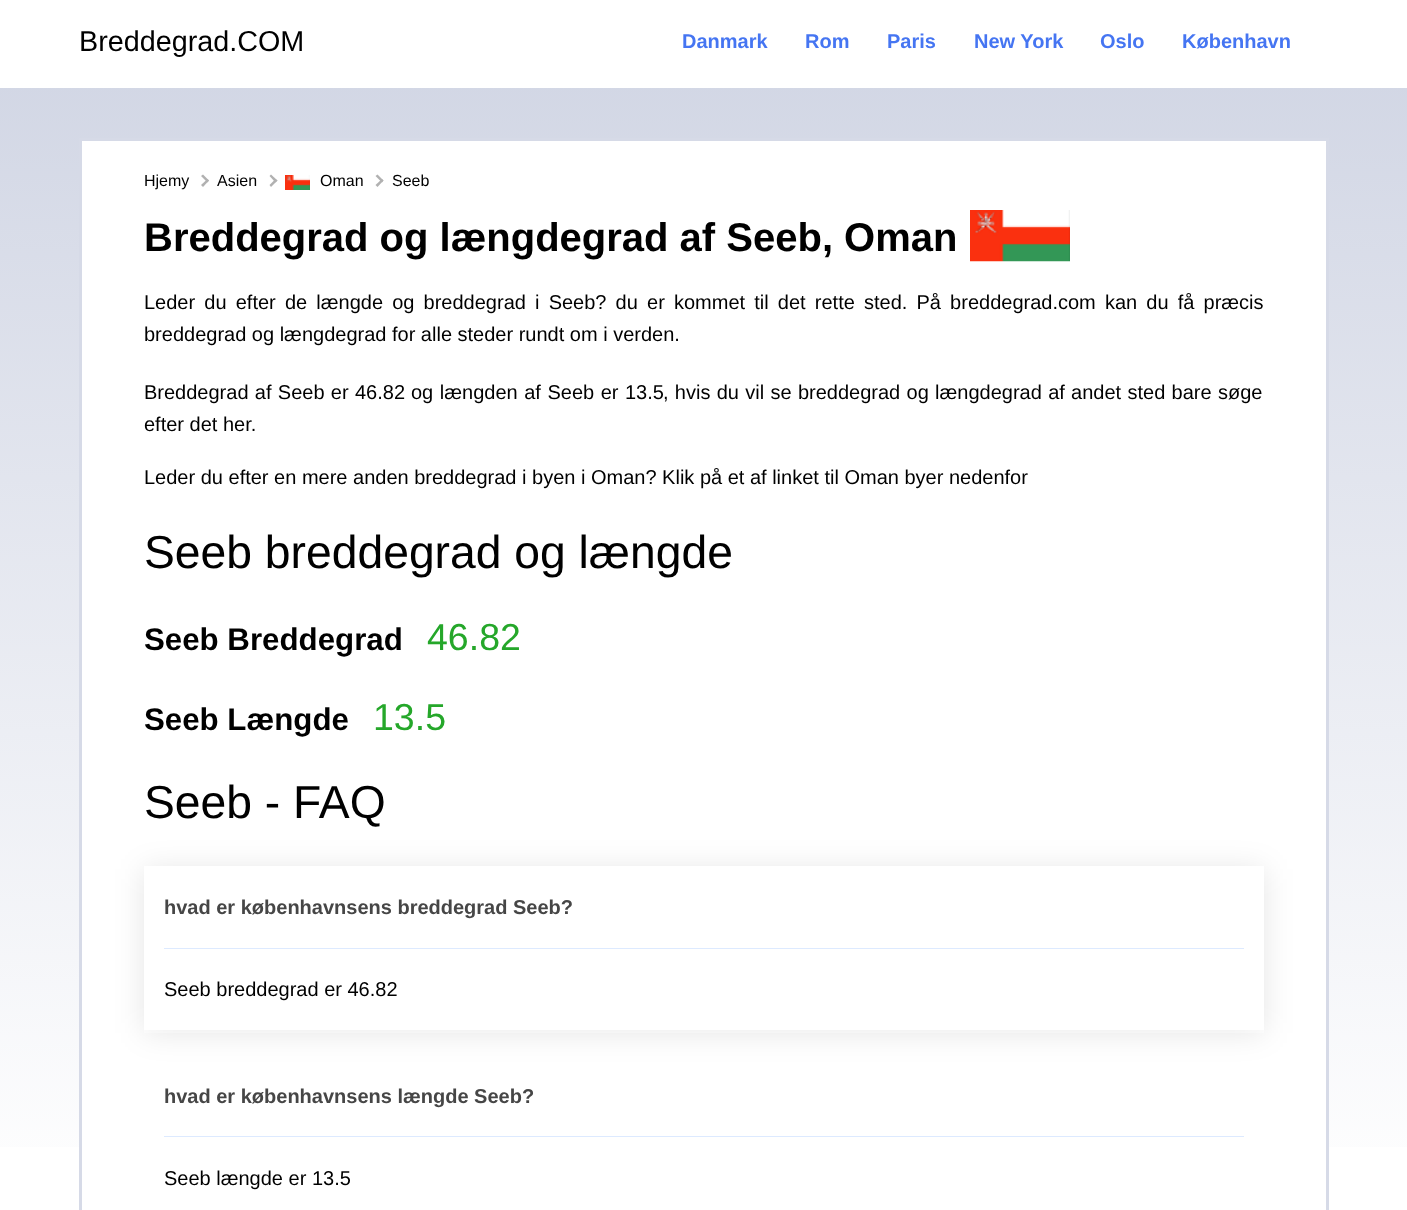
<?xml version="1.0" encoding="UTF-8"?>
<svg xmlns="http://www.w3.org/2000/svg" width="1407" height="1210">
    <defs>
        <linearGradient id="g1" gradientUnits="userSpaceOnUse" x1="704" y1="0" x2="704" y2="1210"><stop offset="0" stop-color="#CFD4E3"/><stop offset="1" stop-color="#FFFFFF"/></linearGradient>
        <clipPath id="clip1"><path d="M 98 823 H 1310 V 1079 H 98 Z M 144 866 H 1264 V 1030 H 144 Z" clip-rule="evenodd"/></clipPath>
        <filter id="blur1" x="-50%" y="-200%" width="200%" height="500%"><feGaussianBlur stdDeviation="15"/></filter>
    </defs>
    <rect width="100%" height="100%" fill="#FFFFFF"/>
    <rect x="0" y="88" width="1407" height="1059" fill="url(#g1)"/>
    <text x="79" y="51" font-family="Liberation Sans" font-size="28.75" fill="#000000">Breddegrad.COM</text>
    <text x="682" y="48" font-family="Liberation Sans" font-size="20" font-weight="700" fill="#4575F2">Danmark</text>
    <text x="805" y="48" font-family="Liberation Sans" font-size="20" font-weight="700" fill="#4575F2">Rom</text>
    <text x="887" y="48" font-family="Liberation Sans" font-size="20" font-weight="700" fill="#4575F2">Paris</text>
    <text x="974" y="48" font-family="Liberation Sans" font-size="20" font-weight="700" fill="#4575F2">New York</text>
    <text x="1100" y="48" font-family="Liberation Sans" font-size="20" font-weight="700" fill="#4575F2">Oslo</text>
    <text x="1182" y="48" font-family="Liberation Sans" font-size="20" font-weight="700" fill="#4575F2">København</text>
    <rect x="82" y="141" width="1244" height="1006" fill="#FFFFFF"/>
    <rect x="80.5" y="139.5" width="1247" height="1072" fill="none" stroke="#D6DAE7" stroke-width="3"/>
    <text x="144" y="186" font-family="Liberation Sans" font-size="16" fill="#000000">Hjemy</text>
    <path d="M 201 176 L 203 174.5 L 209 180.5 L 207.5 182.5 Z" fill="#B1B1B1"/>
    <path d="M 201 185 L 207.5 179 L 209 180.5 L 203 187 Z" fill="#B1B1B1"/>
    <text x="217" y="186" font-family="Liberation Sans" font-size="16" fill="#000000">Asien</text>
    <path d="M 269.5 176 L 271 174.5 L 277.5 180.5 L 275.5 182.5 Z" fill="#B1B1B1"/>
    <path d="M 269.5 185 L 275.5 179 L 277.5 180.5 L 271 187 Z" fill="#B1B1B1"/>
    <image x="285" y="175" width="25" height="15" href="img_01.png"/>
    <text x="320" y="186" font-family="Liberation Sans" font-size="16" fill="#000000">Oman</text>
    <path d="M 375.5 176 L 377.5 174.5 L 383.5 180.5 L 382 182.5 Z" fill="#B1B1B1"/>
    <path d="M 375.5 185 L 382 179 L 383.5 180.5 L 377.5 187 Z" fill="#B1B1B1"/>
    <text x="392" y="186" font-family="Liberation Sans" font-size="16" fill="#000000">Seeb</text>
    <text x="144" y="251" font-family="Liberation Sans" font-size="40" font-weight="700" fill="#000000">Breddegrad og længdegrad af Seeb, Oman</text>
    <image x="970" y="210" width="100" height="52" href="img_02.png"/>
    <text font-family="Liberation Sans" font-size="20" fill="#000000">
        <tspan x="144" y="309" word-spacing="3.6">Leder du efter de længde og breddegrad i Seeb? du er kommet til det rette sted. På breddegrad.com kan du få præcis</tspan>
        <tspan x="144" y="341">breddegrad og længdegrad for alle steder rundt om i verden.</tspan>
    </text>
    <text x="144" y="399" word-spacing="0.75" font-family="Liberation Sans" font-size="20" fill="#000000">Breddegrad af Seeb er</text>
    <text x="355" y="399" font-family="Liberation Sans" font-size="20" fill="#000000">46.82</text>
    <text x="411" y="399" word-spacing="1" font-family="Liberation Sans" font-size="20" fill="#000000">og længden af Seeb er</text>
    <text x="625" y="399" font-family="Liberation Sans" font-size="20" fill="#000000">13.5</text>
    <text x="663" y="399" word-spacing="0.75" font-family="Liberation Sans" font-size="20" fill="#000000">, hvis du vil se breddegrad og længdegrad af andet sted bare søge</text>
    <text x="144" y="431" font-family="Liberation Sans" font-size="20" fill="#000000">efter det her.</text>
    <text x="144" y="484" font-family="Liberation Sans" font-size="20" fill="#000000">Leder du efter en mere anden breddegrad i byen i Oman? Klik på et af linket til Oman byer nedenfor</text>
    <text x="144" y="568" font-family="Liberation Sans" font-size="46.25" fill="#000000">Seeb breddegrad og længde</text>
    <text x="144" y="650" font-family="Liberation Sans" font-size="31.25" font-weight="700" fill="#000000">Seeb Breddegrad</text>
    <text x="427" y="650" font-family="Liberation Sans" font-size="37.5" fill="#25A72A">46.82</text>
    <text x="144" y="730" font-family="Liberation Sans" font-size="31.25" font-weight="700" fill="#000000">Seeb Længde</text>
    <text x="373" y="730" font-family="Liberation Sans" font-size="37.5" fill="#25A72A">13.5</text>
    <g clip-path="url(#clip1)">
        <rect x="144" y="869" width="1120" height="164" fill="#3F3F3F" fill-opacity="0.1" filter="url(#blur1)"/>
    </g>
    <text x="144" y="818" font-family="Liberation Sans" font-size="46.25" fill="#000000">Seeb - FAQ</text>
    <rect x="164" y="948" width="1080" height="1" fill="#DDEAFF"/>
    <text x="164" y="914" font-family="Liberation Sans" font-size="20" font-weight="700" fill="#464646">hvad er københavnsens breddegrad Seeb?</text>
    <text x="164" y="996" font-family="Liberation Sans" font-size="20" fill="#000000">Seeb breddegrad er 46.82</text>
    <rect x="164" y="1136" width="1080" height="1" fill="#DDEAFF"/>
    <text x="164" y="1103" font-family="Liberation Sans" font-size="20" font-weight="700" fill="#464646">hvad er københavnsens længde Seeb?</text>
    <text x="164" y="1185" font-family="Liberation Sans" font-size="20" fill="#000000">Seeb længde er 13.5</text>
</svg>
